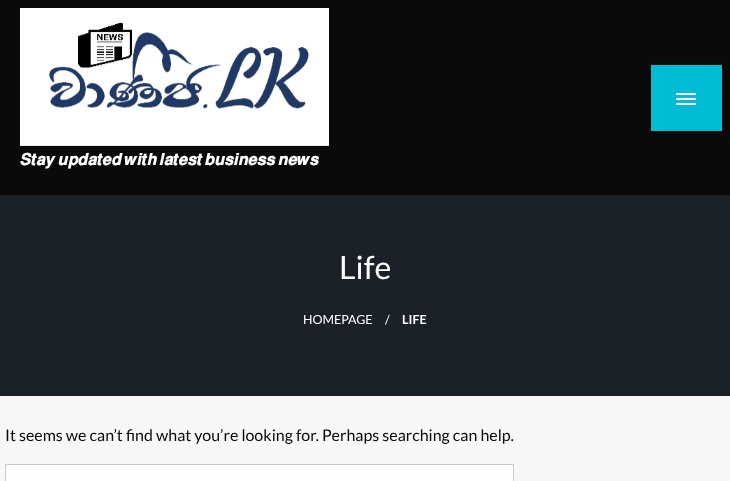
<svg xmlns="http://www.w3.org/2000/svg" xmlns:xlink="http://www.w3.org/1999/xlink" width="730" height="481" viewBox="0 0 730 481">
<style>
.cls-1{font:bold 16px FreeSans;fill:#fefefe}
.cls-2{font:32px Lato;fill:#fefefe}
.cls-3{font:12.5px Lato;fill:#fefefe}
.cls-4{font:bold 12.5px Lato;fill:#fefefe}
.cls-5{font:16px Lato;fill:#0a0a0a}
</style>
<rect width="100%" height="100%" fill="#f7f7f7"/>
<rect fill="#0a0a0a" x="0" y="0" width="730" height="195"/>
<rect fill="#00bcd4" x="651" y="65" width="71" height="66"/>
<rect fill="#ffffff" x="676" y="93" width="20" height="2"/>
<rect fill="#ffffff" x="676" y="98" width="20" height="2"/>
<rect fill="#ffffff" x="676" y="103" width="20" height="2"/>
<image xlink:href="image0.png" x="20" y="8" width="309" height="138"/>
<rect fill="#1c2127" x="0" y="195" width="730" height="201"/>
<rect fill="#fefefe" stroke="#cacaca" x="5.5" y="464.5" width="508" height="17"/>
<text class="cls-1" x="20" y="165" word-spacing="-1">𝑺𝒕𝒂𝒚 𝒖𝒑𝒅𝒂𝒕𝒆𝒅 𝒘𝒊𝒕𝒉 𝒍𝒂𝒕𝒆𝒔𝒕 𝒃𝒖𝒔𝒊𝒏𝒆𝒔𝒔 𝒏𝒆𝒘𝒔</text>
<text class="cls-2" x="339" y="279">Life</text>
<text class="cls-3" x="303" y="324">HOMEPAGE</text>
<text class="cls-3" x="385" y="324">/</text>
<text class="cls-4" x="402" y="324">LIFE</text>
<text class="cls-5" x="5" y="441">It seems we can’t find what you’re looking for. Perhaps searching can help.</text>
</svg>
